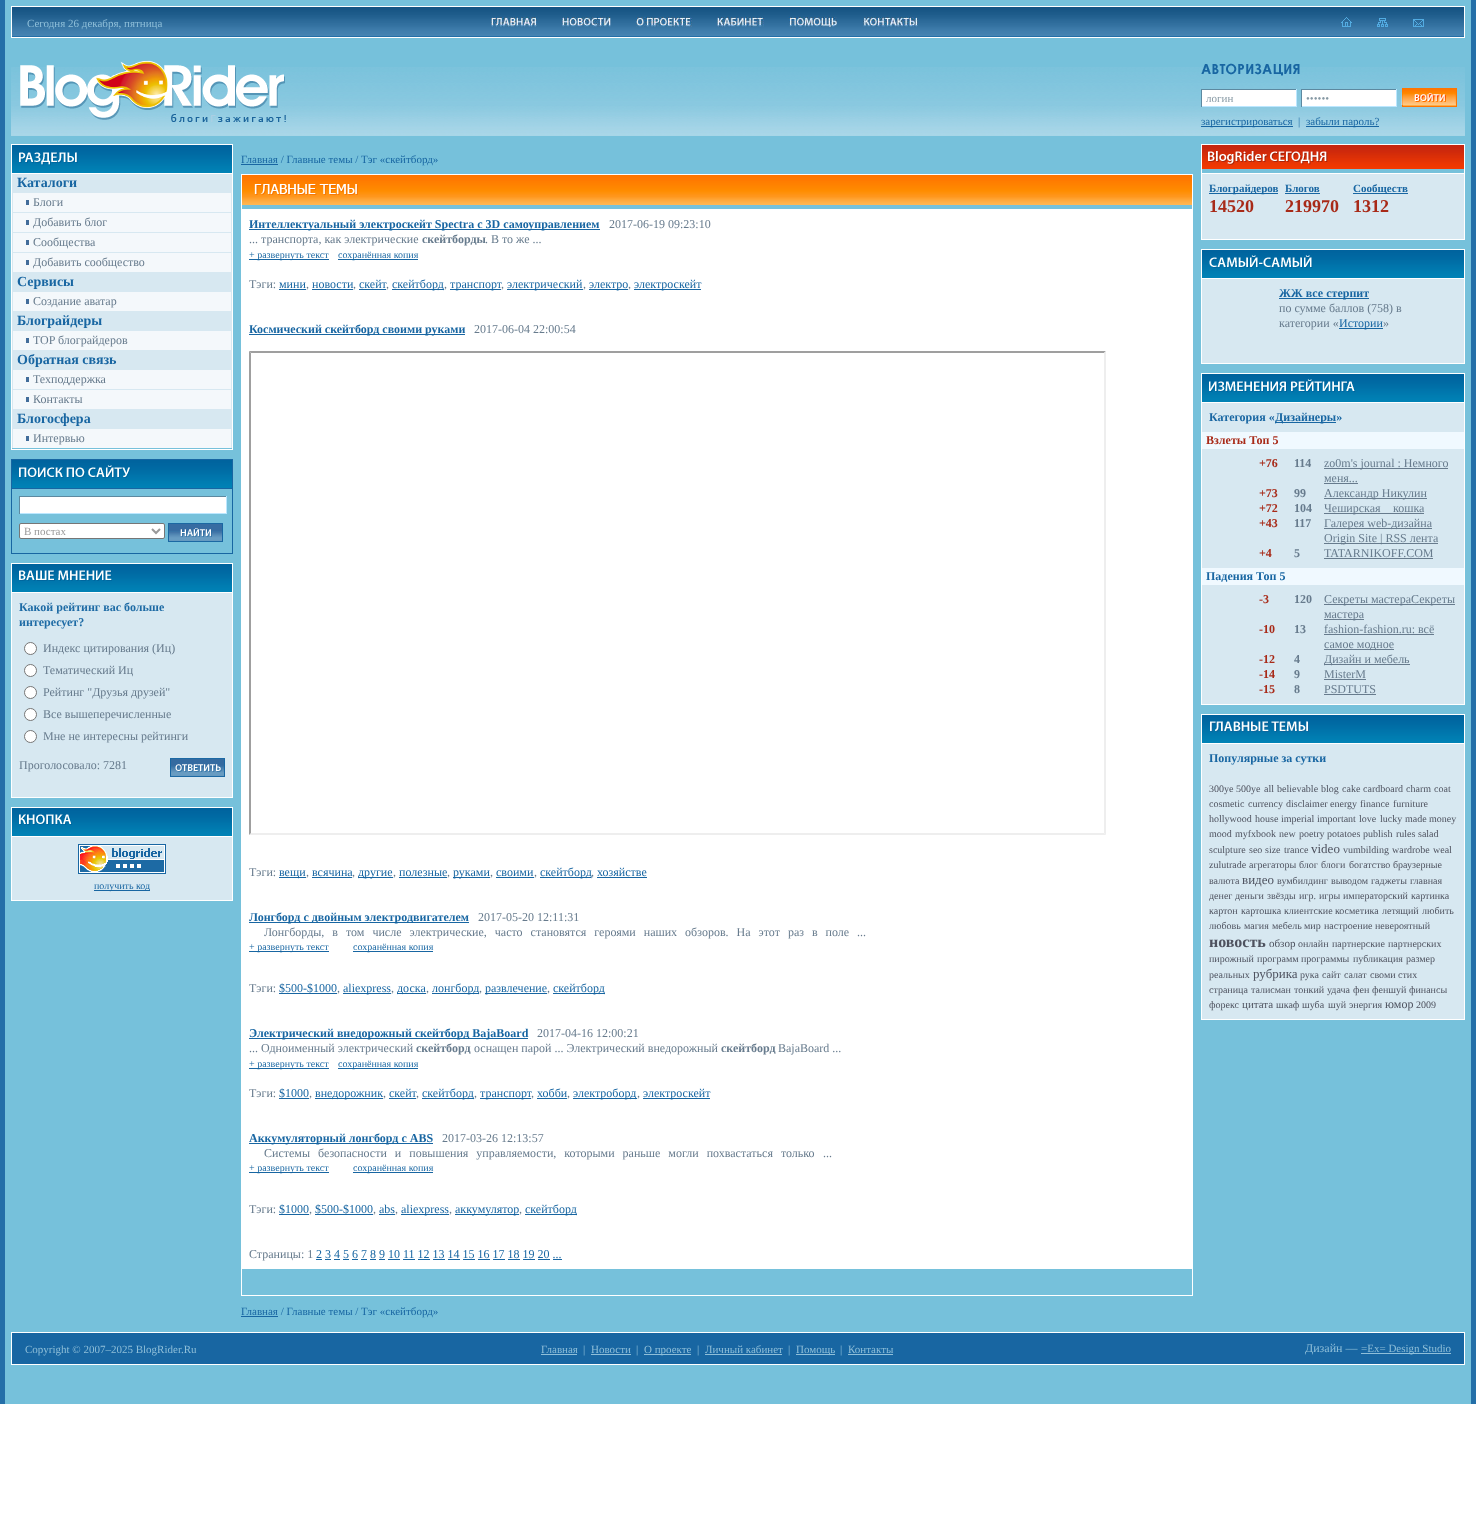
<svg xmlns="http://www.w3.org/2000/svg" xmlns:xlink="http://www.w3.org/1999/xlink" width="1476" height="1525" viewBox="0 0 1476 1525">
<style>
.cls-1{font:11px Liberation Serif;fill:#8fbfd9}
.cls-2{font:11px Liberation Serif;fill:#8799a4}
.cls-3{font:11px Liberation Serif;fill:#1866a2}
.cls-4{font:11px Liberation Serif;fill:#246fa8}
.cls-5{font:bold 14px Liberation Serif;fill:#1866a2}
.cls-6{font:12px Liberation Serif;fill:#677b8d}
.cls-7{font:11px Liberation Serif;fill:#999999}
.cls-8{font:bold 12px Liberation Serif;fill:#1e6ba5}
.cls-9{font:10px Liberation Serif;fill:#1866a2}
.cls-10{font:bold 12px Liberation Serif;fill:#1866a2}
.cls-11{font:bold 12px Liberation Serif;fill:#677b8d}
.cls-12{font:12px Liberation Serif;fill:#1866a2}
.cls-13{font:bold 11px Liberation Serif;fill:#1866a2}
.cls-14{font:bold 18px Liberation Serif;fill:#a82a18}
.cls-15{font:bold 12px Liberation Serif;fill:#a82a18}
.cls-16{font:10px Liberation Serif;fill:#4e525f}
.cls-17{font:13px Liberation Serif;fill:#4e525f}
.cls-18{font:bold 16px Liberation Serif;fill:#4e525f}
.cls-19{font:11px Liberation Serif;fill:#4e525f}
.cls-20{font:12px Liberation Serif;fill:#4e525f}
.cls-21{font:12px Liberation Serif;fill:#8fbfd9}
</style>
<rect width="100%" height="100%" fill="#ffffff"/>
<rect fill="#246fa8" x="0" y="0" width="1476" height="1404"/>
<rect fill="#76c1db" x="5" y="0" width="1466" height="1404"/>
<rect fill="#246fa8" x="12" y="36" width="1452" height="1"/>
<image xlink:href="image0.png" x="12" y="7" width="1452" height="29"/>
<rect fill="none" stroke="#ffffff" x="11.5" y="6.5" width="1453" height="31"/>
<image xlink:href="image1.png" x="491" y="17" width="46" height="10"/>
<image xlink:href="image2.png" x="562" y="17" width="49" height="10"/>
<image xlink:href="image3.png" x="636" y="17" width="56" height="10"/>
<image xlink:href="image4.png" x="717" y="17" width="47" height="10"/>
<image xlink:href="image5.png" x="789" y="17" width="48" height="10"/>
<image xlink:href="image6.png" x="863" y="17" width="55" height="10"/>
<image xlink:href="image7.png" x="1341" y="17" width="11" height="10"/>
<image xlink:href="image8.png" x="1377" y="18" width="11" height="9"/>
<image xlink:href="image9.png" x="1413" y="19" width="11" height="8"/>
<image xlink:href="image10.png" x="11" y="67" width="1454" height="69"/>
<image xlink:href="image11.png" x="20" y="60" width="266" height="62"/>
<image xlink:href="image12.png" x="1201" y="63" width="99" height="13"/>
<rect fill="#ffffff" x="1202" y="90" width="94" height="16"/>
<rect fill="#5d89a0" x="1201" y="89" width="96" height="1"/>
<rect fill="#bce7ff" x="1296" y="89" width="1" height="18"/>
<rect fill="#bce7ff" x="1201" y="106" width="96" height="1"/>
<rect fill="#5d89a0" x="1201" y="89" width="1" height="18"/>
<rect fill="#ffffff" x="1302" y="90" width="94" height="16"/>
<rect fill="#5d89a0" x="1301" y="89" width="96" height="1"/>
<rect fill="#bce7ff" x="1396" y="89" width="1" height="18"/>
<rect fill="#bce7ff" x="1301" y="106" width="96" height="1"/>
<rect fill="#5d89a0" x="1301" y="89" width="1" height="18"/>
<image xlink:href="image13.png" x="1401" y="88" width="56" height="19"/>
<rect fill="#1866a2" x="1201" y="126" width="92" height="1"/>
<rect fill="#1866a2" x="1306" y="126" width="73" height="1"/>
<rect fill="none" stroke="#ffffff" x="11.5" y="144.5" width="221" height="305"/>
<image xlink:href="image14.png" x="12" y="145" width="220" height="28"/>
<rect fill="#ffffff" x="12" y="173" width="220" height="1"/>
<image xlink:href="image15.png" x="19" y="152" width="59" height="14"/>
<rect fill="#d7e8f1" x="12" y="174" width="220" height="274"/>
<rect fill="#f4f8fb" x="13" y="193" width="218" height="19"/>
<rect fill="#416c9a" x="26" y="200" width="3" height="5"/>
<rect fill="#f4f8fb" x="13" y="213" width="218" height="19"/>
<rect fill="#416c9a" x="26" y="220" width="3" height="5"/>
<rect fill="#f4f8fb" x="13" y="233" width="218" height="19"/>
<rect fill="#416c9a" x="26" y="240" width="3" height="5"/>
<rect fill="#f4f8fb" x="13" y="253" width="218" height="19"/>
<rect fill="#416c9a" x="26" y="260" width="3" height="5"/>
<rect fill="#f4f8fb" x="13" y="292" width="218" height="19"/>
<rect fill="#416c9a" x="26" y="299" width="3" height="5"/>
<rect fill="#f4f8fb" x="13" y="331" width="218" height="19"/>
<rect fill="#416c9a" x="26" y="338" width="3" height="5"/>
<rect fill="#f4f8fb" x="13" y="370" width="218" height="19"/>
<rect fill="#416c9a" x="26" y="377" width="3" height="5"/>
<rect fill="#f4f8fb" x="13" y="390" width="218" height="19"/>
<rect fill="#416c9a" x="26" y="397" width="3" height="5"/>
<rect fill="#f4f8fb" x="13" y="429" width="218" height="19"/>
<rect fill="#416c9a" x="26" y="436" width="3" height="5"/>
<rect fill="none" stroke="#1866a2" x="11.5" y="459.5" width="221" height="94"/>
<image xlink:href="image14.png" x="12" y="460" width="220" height="28"/>
<rect fill="#1866a2" x="12" y="488" width="220" height="1"/>
<image xlink:href="image16.png" x="19" y="465" width="112" height="13"/>
<rect fill="#ffffff" x="20" y="497" width="206" height="16"/>
<rect fill="#5d89a0" x="19" y="496" width="208" height="1"/>
<rect fill="#bce7ff" x="226" y="496" width="1" height="18"/>
<rect fill="#bce7ff" x="19" y="513" width="208" height="1"/>
<rect fill="#5d89a0" x="19" y="496" width="1" height="18"/>
<rect fill="#ffffff" stroke="#767676" x="19.5" y="523.5" width="145" height="15" rx="1.5"/>
<path fill="none" stroke="#999999" stroke-width="2" d="M152 529L156 533L160 529"/>
<image xlink:href="image17.png" x="168" y="523" width="55" height="19"/>
<rect fill="none" stroke="#ffffff" x="11.5" y="563.5" width="221" height="234"/>
<image xlink:href="image14.png" x="12" y="564" width="220" height="28"/>
<rect fill="#ffffff" x="12" y="592" width="220" height="1"/>
<image xlink:href="image18.png" x="19" y="570" width="93" height="11"/>
<rect fill="#d7e8f1" x="12" y="593" width="220" height="204"/>
<circle fill="#ffffff" stroke="#767676" cx="30.5" cy="648.5" r="6"/>
<circle fill="#ffffff" stroke="#767676" cx="30.5" cy="670.5" r="6"/>
<circle fill="#ffffff" stroke="#767676" cx="30.5" cy="692.5" r="6"/>
<circle fill="#ffffff" stroke="#767676" cx="30.5" cy="714.5" r="6"/>
<circle fill="#ffffff" stroke="#767676" cx="30.5" cy="736.5" r="6"/>
<image xlink:href="image19.png" x="170" y="758" width="55" height="19"/>
<rect fill="none" stroke="#ffffff" x="11.5" y="807.5" width="221" height="93"/>
<image xlink:href="image14.png" x="12" y="808" width="220" height="28"/>
<rect fill="#ffffff" x="12" y="836" width="220" height="1"/>
<image xlink:href="image20.png" x="19" y="814" width="53" height="11"/>
<rect fill="#d7e8f1" x="12" y="837" width="220" height="63"/>
<image xlink:href="image21.png" x="78" y="844" width="88" height="30"/>
<rect fill="#1866a2" x="94" y="890" width="56" height="1"/>
<rect fill="#1866a2" x="241" y="164" width="37" height="1"/>
<rect fill="none" stroke="#ffffff" x="241.5" y="174.5" width="951" height="1121"/>
<image xlink:href="image22.png" x="242" y="175" width="950" height="30"/>
<rect fill="#ffffff" x="242" y="209" width="950" height="1060"/>
<image xlink:href="image23.png" x="254" y="184" width="104" height="11"/>
<rect fill="#1866a2" x="249" y="229" width="351" height="1"/>
<rect fill="#1866a2" x="249" y="259" width="80" height="1"/>
<rect fill="#1866a2" x="338" y="259" width="80" height="1"/>
<rect fill="#1866a2" x="279" y="289" width="27" height="1"/>
<rect fill="#1866a2" x="312" y="289" width="41" height="1"/>
<rect fill="#1866a2" x="359" y="289" width="27" height="1"/>
<rect fill="#1866a2" x="392" y="289" width="52" height="1"/>
<rect fill="#1866a2" x="450" y="289" width="51" height="1"/>
<rect fill="#1866a2" x="507" y="289" width="76" height="1"/>
<rect fill="#1866a2" x="589" y="289" width="39" height="1"/>
<rect fill="#1866a2" x="634" y="289" width="67" height="1"/>
<rect fill="#1866a2" x="249" y="334" width="216" height="1"/>
<path fill="#9f9f9f" d="M249 351H1106L1104 353H251Z"/>
<path fill="#eeeeee" d="M1106 351V835L1104 833V353Z"/>
<path fill="#eeeeee" d="M1106 835H249L251 833H1104Z"/>
<path fill="#9f9f9f" d="M249 835V351L251 353V833Z"/>
<rect fill="#1866a2" x="279" y="877" width="27" height="1"/>
<rect fill="#1866a2" x="312" y="877" width="40" height="1"/>
<rect fill="#1866a2" x="358" y="877" width="35" height="1"/>
<rect fill="#1866a2" x="399" y="877" width="48" height="1"/>
<rect fill="#1866a2" x="453" y="877" width="37" height="1"/>
<rect fill="#1866a2" x="496" y="877" width="38" height="1"/>
<rect fill="#1866a2" x="540" y="877" width="51" height="1"/>
<rect fill="#1866a2" x="597" y="877" width="50" height="1"/>
<rect fill="#1866a2" x="249" y="922" width="220" height="1"/>
<rect fill="#1866a2" x="249" y="951" width="80" height="1"/>
<rect fill="#1866a2" x="353" y="951" width="80" height="1"/>
<rect fill="#1866a2" x="279" y="993" width="58" height="1"/>
<rect fill="#1866a2" x="343" y="993" width="48" height="1"/>
<rect fill="#1866a2" x="397" y="993" width="29" height="1"/>
<rect fill="#1866a2" x="432" y="993" width="47" height="1"/>
<rect fill="#1866a2" x="485" y="993" width="62" height="1"/>
<rect fill="#1866a2" x="553" y="993" width="52" height="1"/>
<rect fill="#1866a2" x="249" y="1038" width="279" height="1"/>
<rect fill="#1866a2" x="249" y="1068" width="80" height="1"/>
<rect fill="#1866a2" x="338" y="1068" width="80" height="1"/>
<rect fill="#1866a2" x="279" y="1098" width="30" height="1"/>
<rect fill="#1866a2" x="315" y="1098" width="68" height="1"/>
<rect fill="#1866a2" x="389" y="1098" width="27" height="1"/>
<rect fill="#1866a2" x="422" y="1098" width="52" height="1"/>
<rect fill="#1866a2" x="480" y="1098" width="51" height="1"/>
<rect fill="#1866a2" x="537" y="1098" width="30" height="1"/>
<rect fill="#1866a2" x="573" y="1098" width="64" height="1"/>
<rect fill="#1866a2" x="643" y="1098" width="67" height="1"/>
<rect fill="#1866a2" x="249" y="1143" width="184" height="1"/>
<rect fill="#1866a2" x="249" y="1172" width="80" height="1"/>
<rect fill="#1866a2" x="353" y="1172" width="80" height="1"/>
<rect fill="#1866a2" x="279" y="1214" width="30" height="1"/>
<rect fill="#1866a2" x="315" y="1214" width="58" height="1"/>
<rect fill="#1866a2" x="379" y="1214" width="16" height="1"/>
<rect fill="#1866a2" x="401" y="1214" width="48" height="1"/>
<rect fill="#1866a2" x="455" y="1214" width="64" height="1"/>
<rect fill="#1866a2" x="525" y="1214" width="52" height="1"/>
<rect fill="#1866a2" x="316" y="1259" width="6" height="1"/>
<rect fill="#1866a2" x="325" y="1259" width="6" height="1"/>
<rect fill="#1866a2" x="334" y="1259" width="6" height="1"/>
<rect fill="#1866a2" x="343" y="1259" width="6" height="1"/>
<rect fill="#1866a2" x="352" y="1259" width="6" height="1"/>
<rect fill="#1866a2" x="361" y="1259" width="6" height="1"/>
<rect fill="#1866a2" x="370" y="1259" width="6" height="1"/>
<rect fill="#1866a2" x="379" y="1259" width="6" height="1"/>
<rect fill="#1866a2" x="388" y="1259" width="12" height="1"/>
<rect fill="#1866a2" x="403" y="1259" width="12" height="1"/>
<rect fill="#1866a2" x="418" y="1259" width="12" height="1"/>
<rect fill="#1866a2" x="433" y="1259" width="12" height="1"/>
<rect fill="#1866a2" x="448" y="1259" width="12" height="1"/>
<rect fill="#1866a2" x="463" y="1259" width="12" height="1"/>
<rect fill="#1866a2" x="478" y="1259" width="12" height="1"/>
<rect fill="#1866a2" x="493" y="1259" width="12" height="1"/>
<rect fill="#1866a2" x="508" y="1259" width="12" height="1"/>
<rect fill="#1866a2" x="523" y="1259" width="12" height="1"/>
<rect fill="#1866a2" x="538" y="1259" width="12" height="1"/>
<rect fill="#1866a2" x="553" y="1259" width="9" height="1"/>
<rect fill="#1866a2" x="241" y="1316" width="37" height="1"/>
<rect fill="none" stroke="#ffffff" x="1201.5" y="144.5" width="263" height="95"/>
<image xlink:href="image24.png" x="1202" y="145" width="262" height="24"/>
<rect fill="#ffffff" x="1202" y="173" width="262" height="1"/>
<image xlink:href="image25.png" x="1208" y="151" width="120" height="14"/>
<rect fill="#d7e8f1" x="1202" y="174" width="262" height="65"/>
<rect fill="#1866a2" x="1209" y="193" width="69" height="1"/>
<rect fill="#1866a2" x="1285" y="193" width="35" height="1"/>
<rect fill="#1866a2" x="1353" y="193" width="55" height="1"/>
<rect fill="none" stroke="#ffffff" x="1201.5" y="249.5" width="263" height="114"/>
<image xlink:href="image26.png" x="1202" y="250" width="262" height="28"/>
<rect fill="#ffffff" x="1202" y="278" width="262" height="1"/>
<image xlink:href="image27.png" x="1209" y="255" width="104" height="13"/>
<rect fill="#d7e8f1" x="1202" y="279" width="262" height="84"/>
<rect fill="#1866a2" x="1279" y="298" width="90" height="1"/>
<rect fill="#1866a2" x="1339" y="328" width="44" height="1"/>
<rect fill="none" stroke="#ffffff" x="1201.5" y="373.5" width="263" height="331"/>
<image xlink:href="image26.png" x="1202" y="374" width="262" height="28"/>
<rect fill="#ffffff" x="1202" y="402" width="262" height="1"/>
<image xlink:href="image28.png" x="1209" y="379" width="147" height="13"/>
<rect fill="#d7e8f1" x="1202" y="403" width="262" height="29"/>
<rect fill="#1866a2" x="1275" y="422" width="61" height="1"/>
<rect fill="#f0f9ff" x="1202" y="432" width="262" height="17"/>
<rect fill="#d7e8f1" x="1202" y="449" width="262" height="119"/>
<rect fill="#677b8d" x="1324" y="468" width="124" height="1"/>
<rect fill="#677b8d" x="1324" y="483" width="34" height="1"/>
<rect fill="#677b8d" x="1324" y="498" width="103" height="1"/>
<rect fill="#677b8d" x="1324" y="513" width="100" height="1"/>
<rect fill="#677b8d" x="1324" y="528" width="108" height="1"/>
<rect fill="#677b8d" x="1324" y="543" width="114" height="1"/>
<rect fill="#677b8d" x="1324" y="558" width="109" height="1"/>
<rect fill="#f0f9ff" x="1202" y="568" width="262" height="17"/>
<rect fill="#d7e8f1" x="1202" y="585" width="262" height="119"/>
<rect fill="#677b8d" x="1324" y="604" width="131" height="1"/>
<rect fill="#677b8d" x="1324" y="619" width="40" height="1"/>
<rect fill="#677b8d" x="1324" y="634" width="110" height="1"/>
<rect fill="#677b8d" x="1324" y="649" width="70" height="1"/>
<rect fill="#677b8d" x="1324" y="664" width="86" height="1"/>
<rect fill="#677b8d" x="1324" y="679" width="42" height="1"/>
<rect fill="#677b8d" x="1324" y="694" width="52" height="1"/>
<rect fill="none" stroke="#ffffff" x="1201.5" y="714.5" width="263" height="305"/>
<image xlink:href="image26.png" x="1202" y="715" width="262" height="28"/>
<rect fill="#ffffff" x="1202" y="743" width="262" height="1"/>
<image xlink:href="image29.png" x="1210" y="721" width="99" height="11"/>
<rect fill="#d7e8f1" x="1202" y="744" width="262" height="275"/>
<rect fill="#1866a2" stroke="#ffffff" x="11.5" y="1332.5" width="1453" height="32"/>
<rect fill="#8fbfd9" x="541" y="1354" width="36" height="1"/>
<rect fill="#8fbfd9" x="591" y="1354" width="40" height="1"/>
<rect fill="#8fbfd9" x="644" y="1354" width="47" height="1"/>
<rect fill="#8fbfd9" x="705" y="1354" width="77" height="1"/>
<rect fill="#8fbfd9" x="796" y="1354" width="39" height="1"/>
<rect fill="#8fbfd9" x="848" y="1354" width="45" height="1"/>
<rect fill="#8fbfd9" x="1361" y="1353" width="90" height="1"/>
<text class="cls-1" x="27" y="27">Сегодня 26 декабря, пятница</text>
<text class="cls-2" x="1206" y="102">логин</text>
<text class="cls-2" x="1306" y="102">••••••</text>
<text class="cls-3" x="1201" y="125">зарегистрироваться</text>
<text class="cls-4" x="1298" y="125">|</text>
<text class="cls-3" x="1306" y="125">забыли пароль?</text>
<text class="cls-5" x="17" y="187">Каталоги</text>
<text class="cls-6"><tspan x="33" y="206">Блоги</tspan><tspan x="33" y="226">Добавить блог</tspan><tspan x="33" y="246">Сообщества</tspan><tspan x="33" y="266">Добавить сообщество</tspan></text>
<text class="cls-5" x="17" y="286">Сервисы</text>
<text class="cls-6" x="33" y="305">Создание аватар</text>
<text class="cls-5" x="17" y="325">Блограйдеры</text>
<text class="cls-6" x="33" y="344">TOP блограйдеров</text>
<text class="cls-5" x="17" y="364">Обратная связь</text>
<text class="cls-6"><tspan x="33" y="383">Техподдержка</tspan><tspan x="33" y="403">Контакты</tspan></text>
<text class="cls-5" x="17" y="423">Блогосфера</text>
<text class="cls-6" x="33" y="442">Интервью</text>
<text class="cls-7" x="24" y="535">В постах</text>
<text class="cls-8"><tspan x="19" y="611">Какой рейтинг вас больше</tspan><tspan x="19" y="626">интересует?</tspan></text>
<text class="cls-6"><tspan x="43" y="652">Индекс цитирования (Иц)</tspan><tspan x="43" y="674">Тематический Иц</tspan><tspan x="43" y="696">Рейтинг "Друзья друзей"</tspan><tspan x="43" y="718">Все вышеперечисленные</tspan><tspan x="43" y="740">Мне не интересны рейтинги</tspan></text>
<text class="cls-6" x="19" y="769">Проголосовало: 7281</text>
<text class="cls-9" x="94" y="889">получить код</text>
<text class="cls-3" x="241" y="163">Главная / Главные темы / Тэг «скейтборд»</text>
<text class="cls-10" x="249" y="228">Интеллектуальный электроскейт Spectra с 3D самоуправлением</text>
<text class="cls-6" x="609" y="228">2017-06-19 09:23:10</text>
<text class="cls-6" x="249" y="243">... транспорта, как электрические</text>
<text class="cls-11" x="422" y="243">скейтборды</text>
<text class="cls-6" x="485" y="243">. В то же ...</text>
<text class="cls-9" x="249" y="258">+ развернуть текст</text>
<text class="cls-9" x="338" y="258">сохранённая копия</text>
<text class="cls-6" x="249" y="288">Тэги:</text>
<text class="cls-12" x="279" y="288">мини</text>
<text class="cls-6" x="306" y="288">,</text>
<text class="cls-12" x="312" y="288">новости</text>
<text class="cls-6" x="353" y="288">,</text>
<text class="cls-12" x="359" y="288">скейт</text>
<text class="cls-6" x="386" y="288">,</text>
<text class="cls-12" x="392" y="288">скейтборд</text>
<text class="cls-6" x="444" y="288">,</text>
<text class="cls-12" x="450" y="288">транспорт</text>
<text class="cls-6" x="501" y="288">,</text>
<text class="cls-12" x="507" y="288">электрический</text>
<text class="cls-6" x="583" y="288">,</text>
<text class="cls-12" x="589" y="288">электро</text>
<text class="cls-6" x="628" y="288">,</text>
<text class="cls-12" x="634" y="288">электроскейт</text>
<text class="cls-10" x="249" y="333">Космический скейтборд своими руками</text>
<text class="cls-6" x="474" y="333">2017-06-04 22:00:54</text>
<text class="cls-6" x="249" y="876">Тэги:</text>
<text class="cls-12" x="279" y="876">вещи</text>
<text class="cls-6" x="306" y="876">,</text>
<text class="cls-12" x="312" y="876">всячина</text>
<text class="cls-6" x="352" y="876">,</text>
<text class="cls-12" x="358" y="876">другие</text>
<text class="cls-6" x="393" y="876">,</text>
<text class="cls-12" x="399" y="876">полезные</text>
<text class="cls-6" x="447" y="876">,</text>
<text class="cls-12" x="453" y="876">руками</text>
<text class="cls-6" x="490" y="876">,</text>
<text class="cls-12" x="496" y="876">своими</text>
<text class="cls-6" x="534" y="876">,</text>
<text class="cls-12" x="540" y="876">скейтборд</text>
<text class="cls-6" x="591" y="876">,</text>
<text class="cls-12" x="597" y="876">хозяйстве</text>
<text class="cls-10" x="249" y="921">Лонгборд с двойным электродвигателем</text>
<text class="cls-6" x="478" y="921">2017-05-20 12:11:31</text>
<text class="cls-6" x="264" y="936" word-spacing="5">Лонгборды, в том числе электрические, часто становятся героями наших обзоров. На этот раз в поле</text>
<text class="cls-6" x="857" y="936">...</text>
<text class="cls-9" x="249" y="950">+ развернуть текст</text>
<text class="cls-9" x="353" y="950">сохранённая копия</text>
<text class="cls-6" x="249" y="992">Тэги:</text>
<text class="cls-12" x="279" y="992">$500-$1000</text>
<text class="cls-6" x="337" y="992">,</text>
<text class="cls-12" x="343" y="992">aliexpress</text>
<text class="cls-6" x="391" y="992">,</text>
<text class="cls-12" x="397" y="992">доска</text>
<text class="cls-6" x="426" y="992">,</text>
<text class="cls-12" x="432" y="992">лонгборд</text>
<text class="cls-6" x="479" y="992">,</text>
<text class="cls-12" x="485" y="992">развлечение</text>
<text class="cls-6" x="547" y="992">,</text>
<text class="cls-12" x="553" y="992">скейтборд</text>
<text class="cls-10" x="249" y="1037">Электрический внедорожный скейтборд BajaBoard</text>
<text class="cls-6" x="537" y="1037">2017-04-16 12:00:21</text>
<text class="cls-6" x="249" y="1052">... Одноименный электрический</text>
<text class="cls-11" x="416" y="1052">скейтборд</text>
<text class="cls-6" x="474" y="1052">оснащен парой ... Электрический внедорожный</text>
<text class="cls-11" x="721" y="1052">скейтборд</text>
<text class="cls-6" x="778" y="1052">BajaBoard ...</text>
<text class="cls-9" x="249" y="1067">+ развернуть текст</text>
<text class="cls-9" x="338" y="1067">сохранённая копия</text>
<text class="cls-6" x="249" y="1097">Тэги:</text>
<text class="cls-12" x="279" y="1097">$1000</text>
<text class="cls-6" x="309" y="1097">,</text>
<text class="cls-12" x="315" y="1097">внедорожник</text>
<text class="cls-6" x="383" y="1097">,</text>
<text class="cls-12" x="389" y="1097">скейт</text>
<text class="cls-6" x="416" y="1097">,</text>
<text class="cls-12" x="422" y="1097">скейтборд</text>
<text class="cls-6" x="474" y="1097">,</text>
<text class="cls-12" x="480" y="1097">транспорт</text>
<text class="cls-6" x="531" y="1097">,</text>
<text class="cls-12" x="537" y="1097">хобби</text>
<text class="cls-6" x="567" y="1097">,</text>
<text class="cls-12" x="573" y="1097">электроборд</text>
<text class="cls-6" x="637" y="1097">,</text>
<text class="cls-12" x="643" y="1097">электроскейт</text>
<text class="cls-10" x="249" y="1142">Аккумуляторный лонгборд с ABS</text>
<text class="cls-6" x="442" y="1142">2017-03-26 12:13:57</text>
<text class="cls-6" x="264" y="1157" word-spacing="5">Системы безопасности и повышения управляемости, которыми раньше могли похвастаться только</text>
<text class="cls-6" x="823" y="1157">...</text>
<text class="cls-9" x="249" y="1171">+ развернуть текст</text>
<text class="cls-9" x="353" y="1171">сохранённая копия</text>
<text class="cls-6" x="249" y="1213">Тэги:</text>
<text class="cls-12" x="279" y="1213">$1000</text>
<text class="cls-6" x="309" y="1213">,</text>
<text class="cls-12" x="315" y="1213">$500-$1000</text>
<text class="cls-6" x="373" y="1213">,</text>
<text class="cls-12" x="379" y="1213">abs</text>
<text class="cls-6" x="395" y="1213">,</text>
<text class="cls-12" x="401" y="1213">aliexpress</text>
<text class="cls-6" x="449" y="1213">,</text>
<text class="cls-12" x="455" y="1213">аккумулятор</text>
<text class="cls-6" x="519" y="1213">,</text>
<text class="cls-12" x="525" y="1213">скейтборд</text>
<text class="cls-6" x="249" y="1258">Страницы: 1</text>
<text class="cls-12" x="316" y="1258">2 3 4 5 6 7 8 9 10 11 12 13 14 15 16 17 18 19 20 ...</text>
<text class="cls-3" x="241" y="1315">Главная / Главные темы / Тэг «скейтборд»</text>
<text class="cls-13" x="1209" y="192">Блограйдеров</text>
<text class="cls-14" x="1209" y="212">14520</text>
<text class="cls-13" x="1285" y="192">Блогов</text>
<text class="cls-14" x="1285" y="212">219970</text>
<text class="cls-13" x="1353" y="192">Сообществ</text>
<text class="cls-14" x="1353" y="212">1312</text>
<text class="cls-10" x="1279" y="297">ЖЖ все стерпит</text>
<text class="cls-6"><tspan x="1279" y="312">по сумме баллов (758) в</tspan><tspan x="1279" y="327">категории «</tspan></text>
<text class="cls-12" x="1339" y="327">Истории</text>
<text class="cls-6" x="1383" y="327">»</text>
<text class="cls-10" x="1209" y="421">Категория «</text>
<text class="cls-10" x="1275" y="421">Дизайнеры»</text>
<text class="cls-15" x="1206" y="444">Взлеты Топ 5</text>
<text class="cls-15" x="1259" y="467">+76</text>
<text class="cls-11" x="1294" y="467">114</text>
<text class="cls-6"><tspan x="1324" y="467">zo0m's journal : Немного</tspan><tspan x="1324" y="482">меня...</tspan></text>
<text class="cls-15" x="1259" y="497">+73</text>
<text class="cls-11" x="1294" y="497">99</text>
<text class="cls-6" x="1324" y="497">Александр Никулин</text>
<text class="cls-15" x="1259" y="512">+72</text>
<text class="cls-11" x="1294" y="512">104</text>
<text class="cls-6" x="1324" y="512">Чеширская</text>
<text class="cls-6" x="1393" y="512">кошка</text>
<text class="cls-15" x="1259" y="527">+43</text>
<text class="cls-11" x="1294" y="527">117</text>
<text class="cls-6"><tspan x="1324" y="527">Галерея web-дизайна</tspan><tspan x="1324" y="542">Origin Site | RSS лента</tspan></text>
<text class="cls-15" x="1259" y="557">+4</text>
<text class="cls-11" x="1294" y="557">5</text>
<text class="cls-6" x="1324" y="557">TATARNIKOFF.COM</text>
<text class="cls-10" x="1206" y="580">Падения Топ 5</text>
<text class="cls-15" x="1259" y="603">-3</text>
<text class="cls-11" x="1294" y="603">120</text>
<text class="cls-6"><tspan x="1324" y="603">Секреты мастераСекреты</tspan><tspan x="1324" y="618">мастера</tspan></text>
<text class="cls-15" x="1259" y="633">-10</text>
<text class="cls-11" x="1294" y="633">13</text>
<text class="cls-6"><tspan x="1324" y="633">fashion-fashion.ru: всё</tspan><tspan x="1324" y="648">самое модное</tspan></text>
<text class="cls-15" x="1259" y="663">-12</text>
<text class="cls-11" x="1294" y="663">4</text>
<text class="cls-6" x="1324" y="663">Дизайн и мебель</text>
<text class="cls-15" x="1259" y="678">-14</text>
<text class="cls-11" x="1294" y="678">9</text>
<text class="cls-6" x="1324" y="678">MisterM</text>
<text class="cls-15" x="1259" y="693">-15</text>
<text class="cls-11" x="1294" y="693">8</text>
<text class="cls-6" x="1324" y="693">PSDTUTS</text>
<text class="cls-10" x="1209" y="762">Популярные за сутки</text>
<text class="cls-16" x="1209" y="792">300ye</text>
<text class="cls-16" x="1236" y="792">500ye</text>
<text class="cls-16" x="1264" y="792">all</text>
<text class="cls-16" x="1277" y="792">believable</text>
<text class="cls-16" x="1321" y="792">blog</text>
<text class="cls-16" x="1342" y="792">cake</text>
<text class="cls-16" x="1363" y="792">cardboard</text>
<text class="cls-16" x="1406" y="792">charm</text>
<text class="cls-16" x="1434" y="792">coat</text>
<text class="cls-16" x="1209" y="807">cosmetic</text>
<text class="cls-16" x="1248" y="807">currency</text>
<text class="cls-16" x="1286" y="807">disclaimer</text>
<text class="cls-16" x="1330" y="807">energy</text>
<text class="cls-16" x="1360" y="807">finance</text>
<text class="cls-16" x="1393" y="807">furniture</text>
<text class="cls-16" x="1209" y="822">hollywood</text>
<text class="cls-16" x="1255" y="822">house</text>
<text class="cls-16" x="1281" y="822">imperial</text>
<text class="cls-16" x="1317" y="822">important</text>
<text class="cls-16" x="1359" y="822">love</text>
<text class="cls-16" x="1380" y="822">lucky</text>
<text class="cls-16" x="1405" y="822">made</text>
<text class="cls-16" x="1429" y="822">money</text>
<text class="cls-16" x="1209" y="837">mood</text>
<text class="cls-16" x="1235" y="837">myfxbook</text>
<text class="cls-16" x="1279" y="837">new</text>
<text class="cls-16" x="1299" y="837">poetry</text>
<text class="cls-16" x="1327" y="837">potatoes</text>
<text class="cls-16" x="1363" y="837">publish</text>
<text class="cls-16" x="1396" y="837">rules</text>
<text class="cls-16" x="1418" y="837">salad</text>
<text class="cls-16" x="1209" y="853">sculpture</text>
<text class="cls-16" x="1249" y="853">seo</text>
<text class="cls-16" x="1265" y="853">size</text>
<text class="cls-16" x="1284" y="853">trance</text>
<text class="cls-17" x="1311" y="853">video</text>
<text class="cls-16" x="1343" y="853">vumbilding</text>
<text class="cls-16" x="1392" y="853">wardrobe</text>
<text class="cls-16" x="1433" y="853">weal</text>
<text class="cls-16" x="1209" y="868">zulutrade</text>
<text class="cls-16" x="1249" y="868">агрегаторы</text>
<text class="cls-16" x="1299" y="868">блог</text>
<text class="cls-16" x="1321" y="868">блоги</text>
<text class="cls-16" x="1349" y="868">богатство</text>
<text class="cls-16" x="1393" y="868">браузерные</text>
<text class="cls-16" x="1209" y="884">валюта</text>
<text class="cls-17" x="1242" y="884">видео</text>
<text class="cls-16" x="1277" y="884">вумбилдинг</text>
<text class="cls-16" x="1331" y="884">выводом</text>
<text class="cls-16" x="1371" y="884">гаджеты</text>
<text class="cls-16" x="1410" y="884">главная</text>
<text class="cls-16" x="1209" y="899">денег</text>
<text class="cls-16" x="1235" y="899">деньги</text>
<text class="cls-16" x="1267" y="899">звёзды</text>
<text class="cls-16" x="1299" y="899">игр.</text>
<text class="cls-16" x="1319" y="899">игры</text>
<text class="cls-16" x="1343" y="899">императорский</text>
<text class="cls-16" x="1411" y="899">картинка</text>
<text class="cls-16" x="1209" y="914">картон</text>
<text class="cls-16" x="1241" y="914">картошка</text>
<text class="cls-16" x="1284" y="914">клиентские</text>
<text class="cls-16" x="1335" y="914">косметика</text>
<text class="cls-16" x="1382" y="914">летящий</text>
<text class="cls-16" x="1422" y="914">любить</text>
<text class="cls-16" x="1209" y="929">любовь</text>
<text class="cls-16" x="1244" y="929">магия</text>
<text class="cls-16" x="1272" y="929">мебель</text>
<text class="cls-16" x="1304" y="929">мир</text>
<text class="cls-16" x="1324" y="929">настроение</text>
<text class="cls-16" x="1375" y="929">невероятный</text>
<text class="cls-18" x="1209" y="947">новость</text>
<text class="cls-19" x="1269" y="947">обзор</text>
<text class="cls-16" x="1298" y="947">онлайн</text>
<text class="cls-16" x="1332" y="947">партнерские</text>
<text class="cls-16" x="1388" y="947">партнерских</text>
<text class="cls-16" x="1209" y="962">пирожный</text>
<text class="cls-16" x="1257" y="962">программ</text>
<text class="cls-16" x="1301" y="962">программы</text>
<text class="cls-16" x="1353" y="962">публикация</text>
<text class="cls-16" x="1406" y="962">размер</text>
<text class="cls-16" x="1209" y="978">реальных</text>
<text class="cls-17" x="1253" y="978">рубрика</text>
<text class="cls-16" x="1300" y="978">рука</text>
<text class="cls-16" x="1322" y="978">сайт</text>
<text class="cls-16" x="1344" y="978">салат</text>
<text class="cls-16" x="1370" y="978">своми</text>
<text class="cls-16" x="1398" y="978">стих</text>
<text class="cls-16" x="1209" y="993">страница</text>
<text class="cls-16" x="1251" y="993">талисман</text>
<text class="cls-16" x="1294" y="993">тонкий</text>
<text class="cls-16" x="1327" y="993">удача</text>
<text class="cls-16" x="1353" y="993">фен</text>
<text class="cls-16" x="1372" y="993">феншуй</text>
<text class="cls-16" x="1409" y="993">финансы</text>
<text class="cls-16" x="1209" y="1008">форекс</text>
<text class="cls-19" x="1242" y="1008">цитата</text>
<text class="cls-16" x="1276" y="1008">шкаф</text>
<text class="cls-16" x="1302" y="1008">шуба</text>
<text class="cls-16" x="1328" y="1008">шуй</text>
<text class="cls-16" x="1349" y="1008">энергия</text>
<text class="cls-20" x="1385" y="1008">юмор</text>
<text class="cls-16" x="1416" y="1008">2009</text>
<text class="cls-1" x="25" y="1353">Copyright © 2007–2025 BlogRider.Ru</text>
<text class="cls-1" x="541" y="1353">Главная</text>
<text class="cls-1" x="583" y="1353">|</text>
<text class="cls-1" x="591" y="1353">Новости</text>
<text class="cls-1" x="636" y="1353">|</text>
<text class="cls-1" x="644" y="1353">О проекте</text>
<text class="cls-1" x="697" y="1353">|</text>
<text class="cls-1" x="705" y="1353">Личный кабинет</text>
<text class="cls-1" x="788" y="1353">|</text>
<text class="cls-1" x="796" y="1353">Помощь</text>
<text class="cls-1" x="840" y="1353">|</text>
<text class="cls-1" x="848" y="1353">Контакты</text>
<text class="cls-21" x="1305" y="1352">Дизайн —</text>
<text class="cls-1" x="1361" y="1352">=Ex= Design Studio</text>
</svg>
